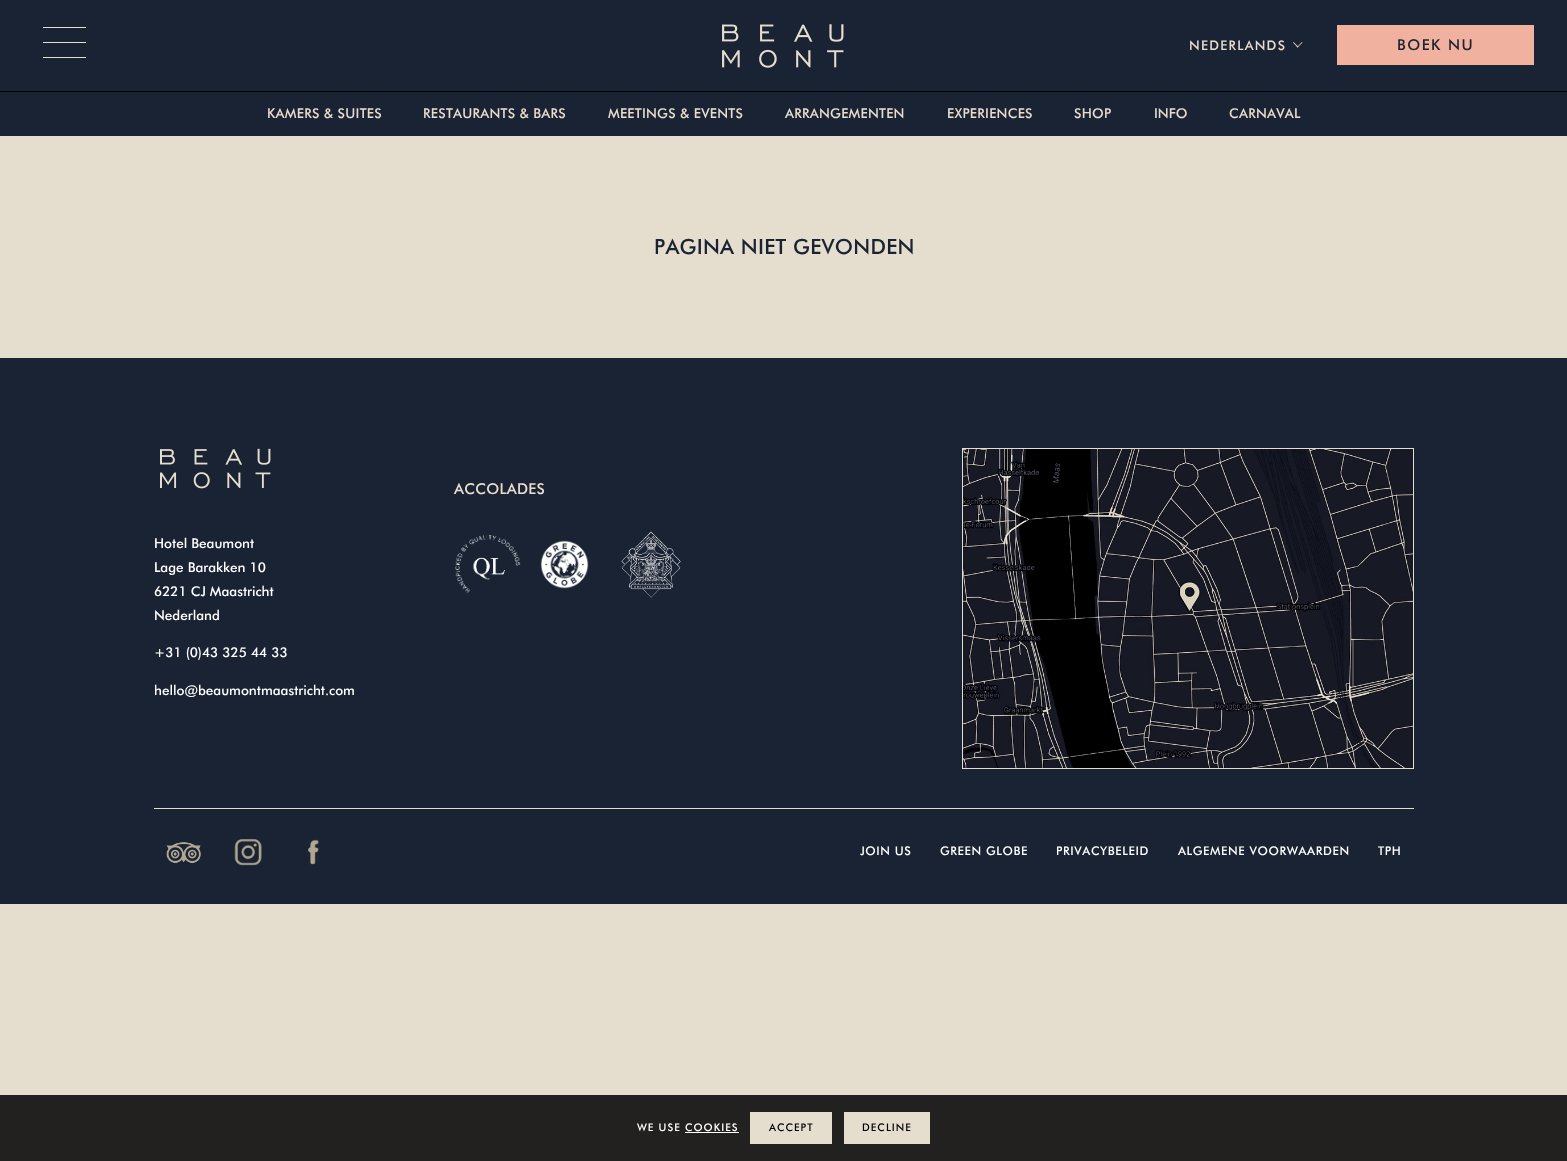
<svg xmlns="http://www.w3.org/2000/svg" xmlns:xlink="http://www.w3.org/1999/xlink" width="1567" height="1161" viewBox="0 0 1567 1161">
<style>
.cls-1{font:13.25px Futura;letter-spacing:1.25px;fill:#e8ddcd}
.cls-2{font:15px Futura;letter-spacing:1.5px;fill:#1a2333}
.cls-3{font:13.5px Futura;letter-spacing:0.25px;fill:#e8ddcd}
.cls-4{font:13.5px Futura;fill:#e8ddcd}
.cls-5{font:21px Futura;letter-spacing:0.25px;fill:#1a2333}
.cls-6{font:15px Futura;letter-spacing:0.25px;fill:#e8ddcd}
.cls-7{font:13.5px Futura;fill:#ffffff}
.cls-8{font:12px Futura;letter-spacing:0.6px;fill:#ffffff}
.cls-9{font:10.5px Futura;letter-spacing:1px;fill:#ffffff}
.cls-10{font:10.5px Futura;letter-spacing:1px;fill:#000000}
</style>
<rect width="100%" height="100%" fill="#e5ddce"/>
<rect fill="#1a2333" x="0" y="0" width="1567" height="91"/>
<rect fill="#e5ddce" x="43" y="57" width="43" height="1"/>
<rect fill="#e5ddce" x="43" y="42" width="43" height="1"/>
<rect fill="#e5ddce" x="43" y="27" width="43" height="1"/>
<image xlink:href="image0.png" x="722" y="24" width="122" height="44"/>
<path fill="#e5ddce" d="M1302 42L1302.5 42.5L1297.5 47.5L1297 47Z"/>
<path fill="#e5ddce" d="M1293.5 42L1298.5 47L1297.5 47.5L1293 42.5Z"/>
<rect fill="#f0b19f" x="1337" y="25" width="197" height="40"/>
<rect fill="#1a2333" x="0" y="92" width="1567" height="44"/>
<rect fill="#000000" x="0" y="91" width="1567" height="1"/>
<rect fill="#1a2333" x="0" y="358" width="1567" height="546"/>
<rect fill="#e5ddce" x="154" y="808" width="1260" height="1"/>
<image xlink:href="image1.png" x="455" y="535" width="66" height="58"/>
<image xlink:href="image2.png" x="540" y="540" width="49" height="49"/>
<image xlink:href="image3.png" x="621" y="531" width="60" height="67"/>
<image xlink:href="image4.png" x="160" y="448" width="111" height="41"/>
<rect fill="none" stroke="#e5ddce" x="962.5" y="448.5" width="451" height="320"/>
<image xlink:href="image5.png" x="963" y="449" width="450" height="319"/>
<image xlink:href="image6.png" x="166" y="842" width="35" height="22"/>
<image xlink:href="image7.png" x="234" y="839" width="28" height="27"/>
<image xlink:href="image8.png" x="308" y="839" width="11" height="26"/>
<rect fill="#22211f" x="0" y="1095" width="1567" height="66"/>
<rect fill="#e5ddce" x="750" y="1112" width="82" height="32"/>
<rect fill="#e5ddce" x="844" y="1112" width="86" height="32"/>
<rect fill="#ffffff" x="685" y="1132" width="54" height="1"/>
<text class="cls-1" x="1189" y="50">NEDERLANDS</text>
<text class="cls-2" x="1397" y="50">BOEK NU</text>
<text class="cls-3" x="267" y="118">KAMERS &amp; SUITES</text>
<text class="cls-3" x="423" y="118">RESTAURANTS &amp; BARS</text>
<text class="cls-3" x="608" y="118">MEETINGS &amp; EVENTS</text>
<text class="cls-3" x="785" y="118">ARRANGEMENTEN</text>
<text class="cls-3" x="947" y="118">EXPERIENCES</text>
<text class="cls-3" x="1074" y="118">SHOP</text>
<text class="cls-4" x="1154" y="118">INFO</text>
<text class="cls-3" x="1229" y="118">CARNAVAL</text>
<text class="cls-5" x="654" y="254">PAGINA NIET GEVONDEN</text>
<text class="cls-6" x="454" y="494">ACCOLADES</text>
<text class="cls-7"><tspan x="154" y="548">Hotel Beaumont</tspan><tspan x="154" y="572">Lage Barakken 10</tspan><tspan x="154" y="596">6221 CJ Maastricht</tspan><tspan x="154" y="620">Nederland</tspan></text>
<text class="cls-7" x="154" y="657">+31 (0)43 325 44 33</text>
<text class="cls-7" x="154" y="695">hello@beaumontmaastricht.com</text>
<text class="cls-8" x="860" y="855">JOIN US</text>
<text class="cls-8" x="940" y="855">GREEN GLOBE</text>
<text class="cls-8" x="1056" y="855">PRIVACYBELEID</text>
<text class="cls-8" x="1178" y="855">ALGEMENE VOORWAARDEN</text>
<text class="cls-8" x="1378" y="855">TPH</text>
<text class="cls-9" x="637" y="1131">WE USE COOKIES</text>
<text class="cls-10" x="769" y="1131">ACCEPT</text>
<text class="cls-10" x="862" y="1131">DECLINE</text>
</svg>
